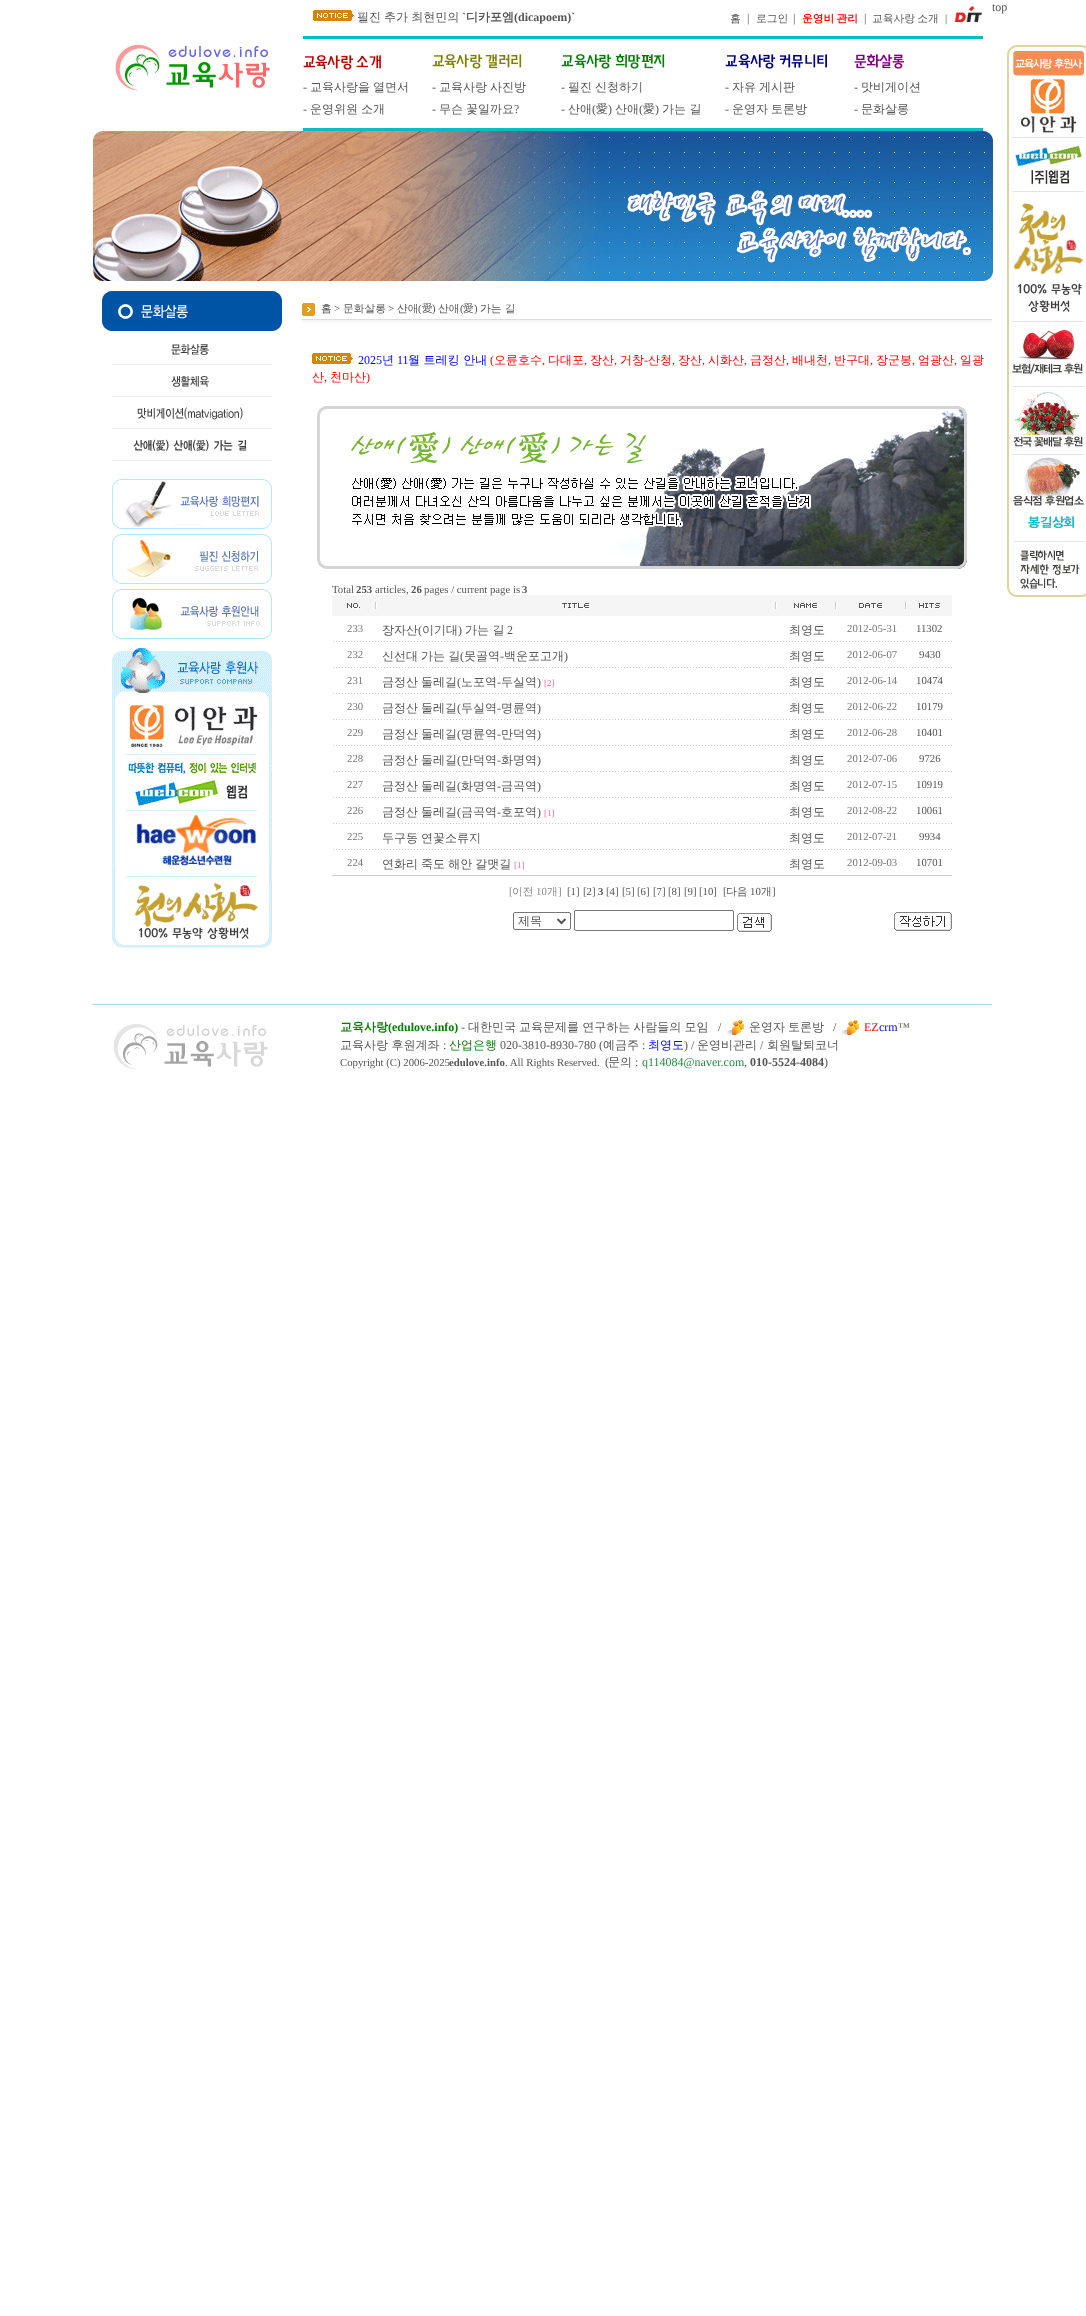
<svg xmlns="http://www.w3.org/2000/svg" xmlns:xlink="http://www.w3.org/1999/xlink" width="1086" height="2316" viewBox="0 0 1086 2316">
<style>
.cls-1{font:12px Liberation Serif;fill:#555555}
.cls-2{font:500 10.75px WenQuanYi Zen Hei;fill:#555555}
.cls-3{font:10.75px Liberation Serif;fill:#555555}
.cls-4{font:12px Liberation Serif;fill:#0000ff}
.cls-5{font:500 12px WenQuanYi Zen Hei;fill:#0000ff}
.cls-6{font:12px Liberation Serif;fill:#ff0000}
.cls-7{font:500 12px WenQuanYi Zen Hei;fill:#ff0000}
.cls-8{font:bold 10.75px Liberation Serif;fill:#555555}
.cls-9{font:10.75px Liberation Serif;fill:#777777}
.cls-10{font:500 12px WenQuanYi Zen Hei;fill:#555555}
.cls-11{font:9px Liberation Serif;fill:#f468a1}
.cls-12{font:10.75px Liberation Serif;fill:#888888}
.cls-13{font:500 10.75px WenQuanYi Zen Hei;fill:#888888}
.cls-14{font:bold 12px WenQuanYi Zen Hei;fill:#008000}
.cls-15{font:bold 12px Liberation Serif;fill:#008000}
.cls-16{font:500 12px WenQuanYi Zen Hei;fill:#008000}
.cls-17{font:12px Liberation Serif;fill:#218d44}
.cls-18{font:bold 12px Liberation Serif;fill:#555555}
.cls-19{font:bold 12px WenQuanYi Zen Hei;fill:#555555}
.cls-20{font:bold 10.75px WenQuanYi Zen Hei;fill:#ff0000}
.cls-21{font:10.75px Liberation Serif;fill:#008000}
</style>
<rect width="100%" height="100%" fill="#ffffff"/>
<image xlink:href="image0.png" x="1007" y="45" width="79" height="552"/>
<image xlink:href="image1.png" x="102" y="291" width="180" height="40"/>
<image xlink:href="image2.png" x="171" y="344" width="38" height="11"/>
<rect fill="#efefef" x="112" y="364" width="160" height="1"/>
<image xlink:href="image3.png" x="171" y="376" width="38" height="11"/>
<rect fill="#efefef" x="112" y="396" width="160" height="1"/>
<image xlink:href="image4.png" x="137" y="407" width="106" height="13"/>
<rect fill="#efefef" x="112" y="428" width="160" height="1"/>
<image xlink:href="image5.png" x="133" y="439" width="114" height="12"/>
<rect fill="#efefef" x="112" y="460" width="160" height="1"/>
<image xlink:href="image6.png" x="112" y="479" width="160" height="50"/>
<image xlink:href="image7.png" x="112" y="534" width="160" height="50"/>
<image xlink:href="image8.png" x="112" y="589" width="160" height="50"/>
<image xlink:href="image9.png" x="112" y="648" width="160" height="300"/>
<image xlink:href="image10.png" x="302" y="303" width="13" height="13"/>
<rect fill="#dddddd" x="302" y="319" width="690" height="1"/>
<rect fill="#f6f6f6" x="302" y="320" width="690" height="2"/>
<image xlink:href="image11.png" x="312" y="353" width="43" height="11"/>
<image xlink:href="image12.png" x="317" y="406" width="650" height="163"/>
<rect fill="#f5f5f5" x="332" y="595" width="620" height="21"/>
<image xlink:href="image13.png" x="347" y="603" width="14" height="6"/>
<image xlink:href="image14.png" x="375" y="602" width="2" height="7"/>
<image xlink:href="image15.png" x="562" y="603" width="28" height="6"/>
<image xlink:href="image14.png" x="775" y="602" width="2" height="7"/>
<image xlink:href="image16.png" x="794" y="603" width="24" height="6"/>
<image xlink:href="image14.png" x="835" y="602" width="2" height="7"/>
<image xlink:href="image17.png" x="859" y="603" width="24" height="6"/>
<image xlink:href="image14.png" x="905" y="602" width="2" height="7"/>
<image xlink:href="image18.png" x="919" y="603" width="22" height="6"/>
<image xlink:href="image19.png" x="333" y="641" width="619" height="1"/>
<image xlink:href="image19.png" x="333" y="667" width="619" height="1"/>
<image xlink:href="image19.png" x="333" y="693" width="619" height="1"/>
<image xlink:href="image19.png" x="333" y="719" width="619" height="1"/>
<image xlink:href="image19.png" x="333" y="745" width="619" height="1"/>
<image xlink:href="image19.png" x="333" y="771" width="619" height="1"/>
<image xlink:href="image19.png" x="333" y="797" width="619" height="1"/>
<image xlink:href="image19.png" x="333" y="823" width="619" height="1"/>
<image xlink:href="image19.png" x="333" y="849" width="619" height="1"/>
<rect fill="#cccccc" x="332" y="875" width="620" height="1"/>
<rect fill="none" stroke="#767676" x="513.5" y="912.5" width="57" height="17" rx="1.5"/>
<path fill="none" stroke="#555555" stroke-width="2" d="M557.5 919L561.5 923L565.5 919"/>
<rect fill="none" stroke="#767676" x="574.5" y="910.5" width="159" height="20" rx="1.5"/>
<image xlink:href="image20.png" x="737" y="913" width="35" height="19"/>
<image xlink:href="image21.png" x="894" y="912" width="58" height="19"/>
<rect fill="#add8e6" x="92" y="1004" width="900" height="1"/>
<image xlink:href="image22.png" x="113" y="1024" width="155" height="46"/>
<image xlink:href="image23.png" x="727" y="1020" width="17" height="15"/>
<image xlink:href="image23.png" x="842" y="1020" width="17" height="15"/>
<image xlink:href="image24.png" x="115" y="45" width="155" height="46"/>
<image xlink:href="image11.png" x="313" y="10" width="43" height="11"/>
<image xlink:href="image25.png" x="954" y="6" width="28" height="16"/>
<rect fill="#00c0c0" x="303" y="36" width="680" height="3"/>
<image xlink:href="image26.png" x="303" y="55" width="78" height="15"/>
<image xlink:href="image27.png" x="432" y="54" width="90" height="15"/>
<image xlink:href="image28.png" x="561" y="54" width="104" height="15"/>
<image xlink:href="image29.png" x="725" y="54" width="102" height="15"/>
<image xlink:href="image30.png" x="854" y="54" width="50" height="15"/>
<rect fill="#00c0c0" x="303" y="128" width="680" height="3"/>
<image xlink:href="image31.png" x="93" y="131" width="900" height="150"/>
<text class="cls-1" x="992" y="11">top</text>
<text class="cls-2" x="321" y="312">홈</text>
<text class="cls-3" x="334" y="312">&gt;</text>
<text class="cls-2" x="343" y="312">문화살롱</text>
<text class="cls-3" x="388" y="312">&gt;</text>
<text class="cls-2" x="397" y="312">산애</text>
<text class="cls-3" x="418" y="312">(</text>
<text class="cls-2" x="422" y="312">愛</text>
<text class="cls-3" x="432" y="312">)</text>
<text class="cls-2" x="438" y="312">산애</text>
<text class="cls-3" x="460" y="312">(</text>
<text class="cls-2" x="463" y="312">愛</text>
<text class="cls-3" x="474" y="312">)</text>
<text class="cls-2" x="480" y="312">가는 길</text>
<text class="cls-4" x="358" y="364">2025</text>
<text class="cls-5" x="382" y="364">년</text>
<text class="cls-4" x="397" y="364">11</text>
<text class="cls-5" x="408" y="364">월 트레킹 안내</text>
<text class="cls-6" x="490" y="364">(</text>
<text class="cls-7" x="494" y="364">오륜호수</text>
<text class="cls-7" x="548" y="364">다대포</text>
<text class="cls-7" x="590" y="364">장산</text>
<text class="cls-7" x="620" y="364">거창</text>
<text class="cls-6" x="644" y="364">-</text>
<text class="cls-7" x="648" y="364">산청</text>
<text class="cls-7" x="678" y="364">장산</text>
<text class="cls-7" x="708" y="364">시화산</text>
<text class="cls-7" x="750" y="364">금정산</text>
<text class="cls-7" x="792" y="364">배내천</text>
<text class="cls-7" x="834" y="364">반구대</text>
<text class="cls-7" x="876" y="364">장군봉</text>
<text class="cls-7" x="918" y="364">엄광산</text>
<text class="cls-7" x="960" y="364">일광</text>
<text class="cls-6" x="542" y="364">,</text>
<text class="cls-6" x="584" y="364">,</text>
<text class="cls-6" x="614" y="364">,</text>
<text class="cls-6" x="672" y="364">,</text>
<text class="cls-6" x="702" y="364">,</text>
<text class="cls-6" x="744" y="364">,</text>
<text class="cls-6" x="786" y="364">,</text>
<text class="cls-6" x="828" y="364">,</text>
<text class="cls-6" x="870" y="364">,</text>
<text class="cls-6" x="912" y="364">,</text>
<text class="cls-6" x="954" y="364">,</text>
<text class="cls-7" x="312" y="381">산</text>
<text class="cls-6" x="324" y="381">,</text>
<text class="cls-7" x="330" y="381">천마산</text>
<text class="cls-6" x="366" y="381">)</text>
<text class="cls-3" x="332" y="593">Total</text>
<text class="cls-8" x="356" y="593">253</text>
<text class="cls-3" x="375" y="593">articles,</text>
<text class="cls-8" x="411" y="593">26</text>
<text class="cls-3" x="424" y="593">pages / current page is</text>
<text class="cls-8" x="522" y="593">3</text>
<text class="cls-9" x="347" y="632">233</text>
<text class="cls-10" x="382" y="634">장자산</text>
<text class="cls-1" x="418" y="634">(</text>
<text class="cls-10" x="422" y="634">이기대</text>
<text class="cls-1" x="458" y="634">)</text>
<text class="cls-10" x="465" y="634">가는 길</text>
<text class="cls-1" x="507" y="634">2</text>
<text class="cls-10" x="789" y="634">최영도</text>
<text class="cls-9" x="847" y="632">2012-05-31</text>
<text class="cls-3" x="916" y="632">11302</text>
<text class="cls-9" x="347" y="658">232</text>
<text class="cls-10" x="382" y="660" word-spacing="-0.5">신선대 가는 길</text>
<text class="cls-1" x="460" y="660">(</text>
<text class="cls-10" x="464" y="660">못골역</text>
<text class="cls-1" x="500" y="660">-</text>
<text class="cls-10" x="504" y="660">백운포고개</text>
<text class="cls-1" x="564" y="660">)</text>
<text class="cls-10" x="789" y="660">최영도</text>
<text class="cls-9" x="847" y="658">2012-06-07</text>
<text class="cls-3" x="919" y="658">9430</text>
<text class="cls-9" x="347" y="684">231</text>
<text class="cls-10" x="382" y="686" word-spacing="-0.5">금정산 둘레길</text>
<text class="cls-1" x="457" y="686">(</text>
<text class="cls-10" x="461" y="686">노포역</text>
<text class="cls-1" x="497" y="686">-</text>
<text class="cls-10" x="501" y="686">두실역</text>
<text class="cls-1" x="537" y="686">)</text>
<text class="cls-11" x="544" y="686">[2]</text>
<text class="cls-10" x="789" y="686">최영도</text>
<text class="cls-9" x="847" y="684">2012-06-14</text>
<text class="cls-3" x="916" y="684">10474</text>
<text class="cls-9" x="347" y="710">230</text>
<text class="cls-10" x="382" y="712" word-spacing="-0.5">금정산 둘레길</text>
<text class="cls-1" x="457" y="712">(</text>
<text class="cls-10" x="461" y="712">두실역</text>
<text class="cls-1" x="497" y="712">-</text>
<text class="cls-10" x="501" y="712">명륜역</text>
<text class="cls-1" x="537" y="712">)</text>
<text class="cls-10" x="789" y="712">최영도</text>
<text class="cls-9" x="847" y="710">2012-06-22</text>
<text class="cls-3" x="916" y="710">10179</text>
<text class="cls-9" x="347" y="736">229</text>
<text class="cls-10" x="382" y="738" word-spacing="-0.5">금정산 둘레길</text>
<text class="cls-1" x="457" y="738">(</text>
<text class="cls-10" x="461" y="738">명륜역</text>
<text class="cls-1" x="497" y="738">-</text>
<text class="cls-10" x="501" y="738">만덕역</text>
<text class="cls-1" x="537" y="738">)</text>
<text class="cls-10" x="789" y="738">최영도</text>
<text class="cls-9" x="847" y="736">2012-06-28</text>
<text class="cls-3" x="916" y="736">10401</text>
<text class="cls-9" x="347" y="762">228</text>
<text class="cls-10" x="382" y="764" word-spacing="-0.5">금정산 둘레길</text>
<text class="cls-1" x="457" y="764">(</text>
<text class="cls-10" x="461" y="764">만덕역</text>
<text class="cls-1" x="497" y="764">-</text>
<text class="cls-10" x="501" y="764">화명역</text>
<text class="cls-1" x="537" y="764">)</text>
<text class="cls-10" x="789" y="764">최영도</text>
<text class="cls-9" x="847" y="762">2012-07-06</text>
<text class="cls-3" x="919" y="762">9726</text>
<text class="cls-9" x="347" y="788">227</text>
<text class="cls-10" x="382" y="790" word-spacing="-0.5">금정산 둘레길</text>
<text class="cls-1" x="457" y="790">(</text>
<text class="cls-10" x="461" y="790">화명역</text>
<text class="cls-1" x="497" y="790">-</text>
<text class="cls-10" x="501" y="790">금곡역</text>
<text class="cls-1" x="537" y="790">)</text>
<text class="cls-10" x="789" y="790">최영도</text>
<text class="cls-9" x="847" y="788">2012-07-15</text>
<text class="cls-3" x="916" y="788">10919</text>
<text class="cls-9" x="347" y="814">226</text>
<text class="cls-10" x="382" y="816" word-spacing="-0.5">금정산 둘레길</text>
<text class="cls-1" x="457" y="816">(</text>
<text class="cls-10" x="461" y="816">금곡역</text>
<text class="cls-1" x="497" y="816">-</text>
<text class="cls-10" x="501" y="816">호포역</text>
<text class="cls-1" x="537" y="816">)</text>
<text class="cls-11" x="544" y="816">[1]</text>
<text class="cls-10" x="789" y="816">최영도</text>
<text class="cls-9" x="847" y="814">2012-08-22</text>
<text class="cls-3" x="916" y="814">10061</text>
<text class="cls-9" x="347" y="840">225</text>
<text class="cls-10" x="382" y="842" word-spacing="-0.5">두구동 연꽃소류지</text>
<text class="cls-10" x="789" y="842">최영도</text>
<text class="cls-9" x="847" y="840">2012-07-21</text>
<text class="cls-3" x="919" y="840">9934</text>
<text class="cls-9" x="347" y="866">224</text>
<text class="cls-10" x="382" y="868" word-spacing="-0.5">연화리 죽도 해안 갈맷길</text>
<text class="cls-11" x="514" y="868">[1]</text>
<text class="cls-10" x="789" y="868">최영도</text>
<text class="cls-9" x="847" y="866">2012-09-03</text>
<text class="cls-3" x="916" y="866">10701</text>
<text class="cls-12" x="509" y="895">[</text>
<text class="cls-13" x="512" y="895">이전</text>
<text class="cls-12" x="536" y="895">10</text>
<text class="cls-13" x="547" y="895">개</text>
<text class="cls-12" x="558" y="895">]</text>
<text class="cls-3" x="567" y="895">[1]</text>
<text class="cls-3" x="583" y="895">[2]</text>
<text class="cls-8" x="598" y="895">3</text>
<text class="cls-3" x="606" y="895">[4]</text>
<text class="cls-3" x="622" y="895">[5]</text>
<text class="cls-3" x="637" y="895">[6]</text>
<text class="cls-3" x="653" y="895">[7]</text>
<text class="cls-3" x="668" y="895">[8]</text>
<text class="cls-3" x="684" y="895">[9]</text>
<text class="cls-3" x="699" y="895">[10]</text>
<text class="cls-3" x="723" y="895">[</text>
<text class="cls-2" x="726" y="895">다음</text>
<text class="cls-3" x="750" y="895">10</text>
<text class="cls-2" x="761" y="895">개</text>
<text class="cls-3" x="772" y="895">]</text>
<text class="cls-10" x="518" y="925">제목</text>
<text class="cls-14" x="340" y="1031">교육사랑</text>
<text class="cls-15" x="388" y="1031">(edulove.info)</text>
<text class="cls-1" x="461" y="1031">-</text>
<text class="cls-10" x="468" y="1031" word-spacing="-0.5">대한민국 교육문제를 연구하는 사람들의 모임</text>
<text class="cls-1" x="718" y="1031">/</text>
<text class="cls-10" x="749" y="1031" word-spacing="-0.5">운영자 토론방</text>
<text class="cls-1" x="833" y="1031">/</text>
<text class="cls-6" x="864" y="1031">EZ</text>
<text class="cls-4" x="879" y="1031">crm</text>
<text class="cls-1" x="898" y="1031">™</text>
<text class="cls-10" x="340" y="1049">교육사랑 후원계좌</text>
<text class="cls-1" x="443" y="1049">:</text>
<text class="cls-16" x="449" y="1049">산업은행</text>
<text class="cls-1" x="500" y="1049">020-3810-8930-780 (</text>
<text class="cls-10" x="603" y="1049">예금주</text>
<text class="cls-1" x="642" y="1049">:</text>
<text class="cls-5" x="648" y="1049">최영도</text>
<text class="cls-1" x="684" y="1049">) /</text>
<text class="cls-10" x="697" y="1049">운영비관리</text>
<text class="cls-1" x="760" y="1049">/</text>
<text class="cls-10" x="767" y="1049">회원탈퇴코너</text>
<text class="cls-3" x="340" y="1066">Copyright (C) 2006-2025</text>
<text class="cls-8" x="449" y="1066">edulove.info</text>
<text class="cls-3" x="505" y="1066">. All Rights Reserved.</text>
<text class="cls-1" x="605" y="1066">(</text>
<text class="cls-10" x="608" y="1066">문의</text>
<text class="cls-1" x="635" y="1066">:</text>
<text class="cls-17" x="642" y="1066">q114084@naver.com</text>
<text class="cls-1" x="744" y="1066">,</text>
<text class="cls-18" x="750" y="1066">010-5524-4084</text>
<text class="cls-1" x="824" y="1066">)</text>
<text class="cls-10" x="357" y="21" word-spacing="-0.5">필진 추가 최현민의</text>
<text class="cls-18" x="462" y="21">`</text>
<text class="cls-19" x="466" y="21">디카포엠</text>
<text class="cls-18" x="514" y="21">(dicapoem)`</text>
<text class="cls-2" x="730" y="22">홈</text>
<text class="cls-1" x="747" y="22">|</text>
<text class="cls-2" x="756" y="22">로그인</text>
<text class="cls-1" x="793" y="22">|</text>
<text class="cls-20" x="802" y="22" word-spacing="-1">운영비 관리</text>
<text class="cls-1" x="864" y="22">|</text>
<text class="cls-2" x="872" y="22" word-spacing="-1">교육사랑 소개</text>
<text class="cls-21" x="945" y="22">|</text>
<text class="cls-1" x="303" y="91">-</text>
<text class="cls-10" x="310" y="91" word-spacing="-0.5">교육사랑을 열면서</text>
<text class="cls-1" x="303" y="113">-</text>
<text class="cls-10" x="310" y="113" word-spacing="-0.5">운영위원 소개</text>
<text class="cls-1" x="432" y="91">-</text>
<text class="cls-10" x="439" y="91" word-spacing="-0.5">교육사랑 사진방</text>
<text class="cls-1" x="432" y="113">-</text>
<text class="cls-10" x="439" y="113" word-spacing="-0.5">무슨 꽃일까요</text>
<text class="cls-1" x="514" y="113">?</text>
<text class="cls-1" x="561" y="91">-</text>
<text class="cls-10" x="568" y="91" word-spacing="-0.5">필진 신청하기</text>
<text class="cls-1" x="561" y="113">-</text>
<text class="cls-10" x="568" y="113">산애</text>
<text class="cls-1" x="592" y="113">(</text>
<text class="cls-10" x="596" y="113">愛</text>
<text class="cls-1" x="608" y="113">)</text>
<text class="cls-10" x="615" y="113">산애</text>
<text class="cls-1" x="639" y="113">(</text>
<text class="cls-10" x="643" y="113">愛</text>
<text class="cls-1" x="655" y="113">)</text>
<text class="cls-10" x="662" y="113">가는 길</text>
<text class="cls-1" x="725" y="91">-</text>
<text class="cls-10" x="732" y="91" word-spacing="-0.5">자유 게시판</text>
<text class="cls-1" x="725" y="113">-</text>
<text class="cls-10" x="732" y="113" word-spacing="-0.5">운영자 토론방</text>
<text class="cls-1" x="854" y="91">-</text>
<text class="cls-10" x="861" y="91">맛비게이션</text>
<text class="cls-1" x="854" y="113">-</text>
<text class="cls-10" x="861" y="113">문화살롱</text>
</svg>
